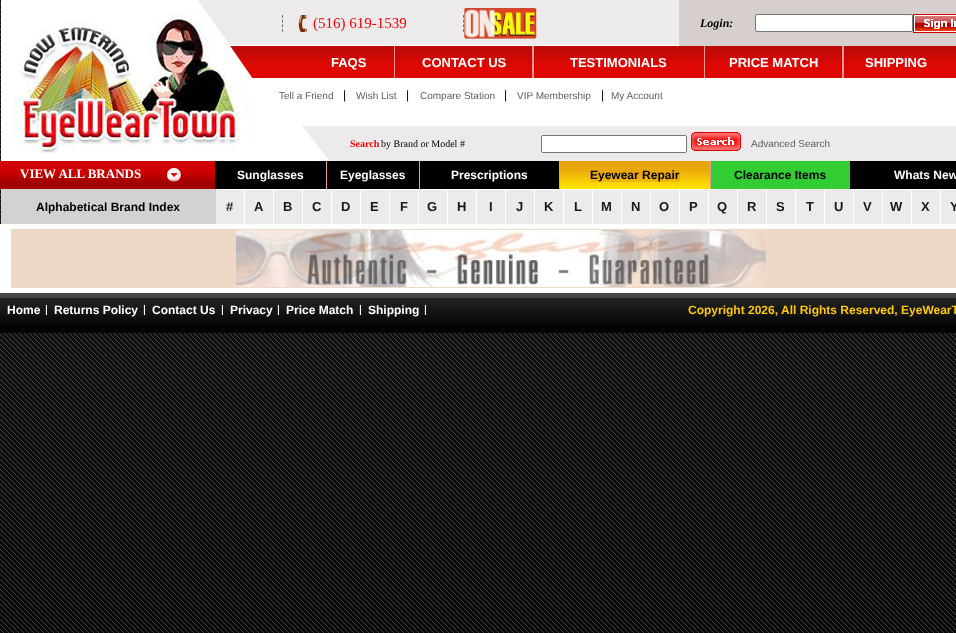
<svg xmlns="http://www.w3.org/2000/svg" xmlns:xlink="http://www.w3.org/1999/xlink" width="956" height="633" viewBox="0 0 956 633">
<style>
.cls-1{font:15px Liberation Serif;fill:#f70104}
.cls-2{font:italic bold 12px Liberation Serif;fill:#000000}
.cls-3{font:bold 13px Liberation Sans;fill:#ffffff}
.cls-4{font:10px Liberation Sans;fill:#5f5c5c}
.cls-5{font:12px Liberation Sans;fill:#000000}
.cls-6{font:bold 10px Liberation Serif;fill:#ff0000}
.cls-7{font:10px Liberation Serif;fill:#000000}
.cls-8{font:bold 13px Liberation Serif;fill:#ffffff}
.cls-9{font:bold 12px Liberation Sans;fill:#ffffff}
.cls-10{font:bold 12px Liberation Sans;fill:#000000}
.cls-11{font:bold 13px Liberation Sans;fill:#191919}
.cls-12{font:bold 12px Liberation Sans;fill:#fdc70b}
</style>
<rect width="100%" height="100%" fill="#ffffff"/>
<image xlink:href="image0.png" x="0" y="0" width="956" height="633"/>
<rect fill="#ffffff" x="1" y="0" width="955" height="161"/>
<image xlink:href="image1.png" x="12" y="0" width="240" height="153"/>
<image xlink:href="image2.png" x="252" y="0" width="704" height="78"/>
<image xlink:href="image3.png" x="298" y="15" width="10" height="17"/>
<path fill="none" stroke="#767575" stroke-dasharray="3 1.67" d="M463.5 15V32"/>
<path fill="none" stroke="#767575" stroke-dasharray="3 1.67" d="M282.5 15V32"/>
<image xlink:href="image4.png" x="464" y="8" width="73" height="31"/>
<rect fill="#d6cfce" x="679" y="0" width="277" height="46"/>
<rect fill="#ffffff" stroke="#767676" x="755.5" y="14.5" width="157" height="17" rx="1.5"/>
<image xlink:href="image5.png" x="913" y="14" width="43" height="19"/>
<rect fill="#eb9996" x="394" y="46" width="1" height="32"/>
<rect fill="#eb9996" x="532" y="46" width="2" height="32"/>
<rect fill="#eb9996" x="704" y="46" width="1" height="32"/>
<rect fill="#eb9996" x="842" y="46" width="2" height="32"/>
<rect fill="#eceaea" x="330" y="126" width="626" height="35"/>
<image xlink:href="image6.png" x="296" y="126" width="34" height="35"/>
<rect fill="#ffffff" stroke="#767676" x="541.5" y="135.5" width="145" height="17" rx="1.5"/>
<image xlink:href="image7.png" x="691" y="132" width="50" height="19"/>
<image xlink:href="image8.png" x="0" y="161" width="215" height="28"/>
<rect fill="#000000" x="215" y="161" width="111" height="28"/>
<rect fill="#eb9996" x="326" y="161" width="1" height="28"/>
<rect fill="#000000" x="327" y="161" width="92" height="28"/>
<rect fill="#eb9996" x="419" y="161" width="1" height="28"/>
<rect fill="#000000" x="420" y="161" width="139" height="28"/>
<rect fill="#eb9996" x="559" y="161" width="1" height="28"/>
<image xlink:href="image9.png" x="560" y="161" width="150" height="28"/>
<image xlink:href="image10.png" x="590" y="169" width="90" height="13"/>
<rect fill="#eb9996" x="710" y="161" width="1" height="28"/>
<rect fill="#32cd32" x="711" y="161" width="139" height="28"/>
<rect fill="#000000" x="850" y="161" width="106" height="28"/>
<rect fill="#d3d2d2" x="1" y="189" width="215" height="35"/>
<rect fill="#ffffff" x="216" y="189" width="740" height="35"/>
<rect fill="#eceaea" x="216" y="190" width="28" height="34"/>
<rect fill="#eceaea" x="245" y="190" width="28" height="34"/>
<rect fill="#eceaea" x="274" y="190" width="28" height="34"/>
<rect fill="#eceaea" x="303" y="190" width="28" height="34"/>
<rect fill="#eceaea" x="332" y="190" width="28" height="34"/>
<rect fill="#eceaea" x="361" y="190" width="28" height="34"/>
<rect fill="#eceaea" x="390" y="190" width="28" height="34"/>
<rect fill="#eceaea" x="419" y="190" width="28" height="34"/>
<rect fill="#eceaea" x="448" y="190" width="28" height="34"/>
<rect fill="#eceaea" x="477" y="190" width="28" height="34"/>
<rect fill="#eceaea" x="506" y="190" width="28" height="34"/>
<rect fill="#eceaea" x="535" y="190" width="28" height="34"/>
<rect fill="#eceaea" x="564" y="190" width="28" height="34"/>
<rect fill="#eceaea" x="593" y="190" width="28" height="34"/>
<rect fill="#eceaea" x="622" y="190" width="28" height="34"/>
<rect fill="#eceaea" x="651" y="190" width="28" height="34"/>
<rect fill="#eceaea" x="680" y="190" width="28" height="34"/>
<rect fill="#eceaea" x="709" y="190" width="28" height="34"/>
<rect fill="#eceaea" x="738" y="190" width="28" height="34"/>
<rect fill="#eceaea" x="767" y="190" width="28" height="34"/>
<rect fill="#eceaea" x="796" y="190" width="28" height="34"/>
<rect fill="#eceaea" x="825" y="190" width="28" height="34"/>
<rect fill="#eceaea" x="854" y="190" width="28" height="34"/>
<rect fill="#eceaea" x="883" y="190" width="28" height="34"/>
<rect fill="#eceaea" x="912" y="190" width="28" height="34"/>
<rect fill="#eceaea" x="941" y="190" width="15" height="34"/>
<rect fill="#ffffff" x="0" y="224" width="956" height="69"/>
<rect fill="#eed9c6" x="11" y="229" width="945" height="59"/>
<image xlink:href="image11.png" x="236" y="230" width="530" height="57"/>
<image xlink:href="image12.png" x="0" y="293" width="956" height="40"/>
<image xlink:href="image13.png" x="45" y="305" width="2" height="10"/>
<image xlink:href="image13.png" x="143" y="305" width="2" height="10"/>
<image xlink:href="image13.png" x="221" y="305" width="2" height="10"/>
<image xlink:href="image13.png" x="277" y="305" width="2" height="10"/>
<image xlink:href="image13.png" x="359" y="305" width="2" height="10"/>
<image xlink:href="image13.png" x="424" y="305" width="2" height="10"/>
<text class="cls-1" x="313" y="28">(516) 619-1539</text>
<text class="cls-2" x="700" y="27">Login:</text>
<text class="cls-3" x="331" y="67">FAQS</text>
<text class="cls-3" x="422" y="67">CONTACT US</text>
<text class="cls-3" x="570" y="67">TESTIMONIALS</text>
<text class="cls-3" x="729" y="67">PRICE MATCH</text>
<text class="cls-3" x="865" y="67">SHIPPING</text>
<text class="cls-4" x="279" y="99">Tell a Friend</text>
<text class="cls-5" x="343" y="99">|</text>
<text class="cls-4" x="356" y="99">Wish List</text>
<text class="cls-5" x="406" y="99">|</text>
<text class="cls-4" x="420" y="99">Compare Station</text>
<text class="cls-5" x="504" y="99">|</text>
<text class="cls-4" x="517" y="99">VIP Membership</text>
<text class="cls-5" x="601" y="99">|</text>
<text class="cls-4" x="611" y="99">My Account</text>
<text class="cls-6" x="350" y="147">Search</text>
<text class="cls-7" x="381" y="147">by Brand or Model #</text>
<text class="cls-4" x="751" y="147">Advanced Search</text>
<text class="cls-8" x="20" y="178">VIEW ALL BRANDS</text>
<text class="cls-9" x="237" y="179">Sunglasses</text>
<text class="cls-9" x="340" y="179">Eyeglasses</text>
<text class="cls-9" x="451" y="179">Prescriptions</text>
<text class="cls-10" x="590" y="179">Eyewear Repair</text>
<text class="cls-10" x="734" y="179">Clearance Items</text>
<text class="cls-9" x="894" y="179">Whats New</text>
<text class="cls-10" x="36" y="211">Alphabetical Brand Index</text>
<text class="cls-11" x="226" y="211">#</text>
<text class="cls-11" x="254" y="211">A</text>
<text class="cls-11" x="283" y="211">B</text>
<text class="cls-11" x="312" y="211">C</text>
<text class="cls-11" x="341" y="211">D</text>
<text class="cls-11" x="370" y="211">E</text>
<text class="cls-11" x="400" y="211">F</text>
<text class="cls-11" x="427" y="211">G</text>
<text class="cls-11" x="457" y="211">H</text>
<text class="cls-11" x="489" y="211">I</text>
<text class="cls-11" x="516" y="211">J</text>
<text class="cls-11" x="544" y="211">K</text>
<text class="cls-11" x="574" y="211">L</text>
<text class="cls-11" x="601" y="211">M</text>
<text class="cls-11" x="631" y="211">N</text>
<text class="cls-11" x="659" y="211">O</text>
<text class="cls-11" x="689" y="211">P</text>
<text class="cls-11" x="717" y="211">Q</text>
<text class="cls-11" x="747" y="211">R</text>
<text class="cls-11" x="776" y="211">S</text>
<text class="cls-11" x="806" y="211">T</text>
<text class="cls-11" x="834" y="211">U</text>
<text class="cls-11" x="863" y="211">V</text>
<text class="cls-11" x="890" y="211">W</text>
<text class="cls-11" x="921" y="211">X</text>
<text class="cls-11" x="950" y="211">Y</text>
<text class="cls-9" x="7" y="314">Home</text>
<text class="cls-9" x="54" y="314">Returns Policy</text>
<text class="cls-9" x="152" y="314">Contact Us</text>
<text class="cls-9" x="230" y="314">Privacy</text>
<text class="cls-9" x="286" y="314">Price Match</text>
<text class="cls-9" x="368" y="314">Shipping</text>
<text class="cls-12" x="688" y="314">Copyright 2026,</text>
<text class="cls-12" x="781" y="314">All Rights Reserved, EyeWearT</text>
</svg>
